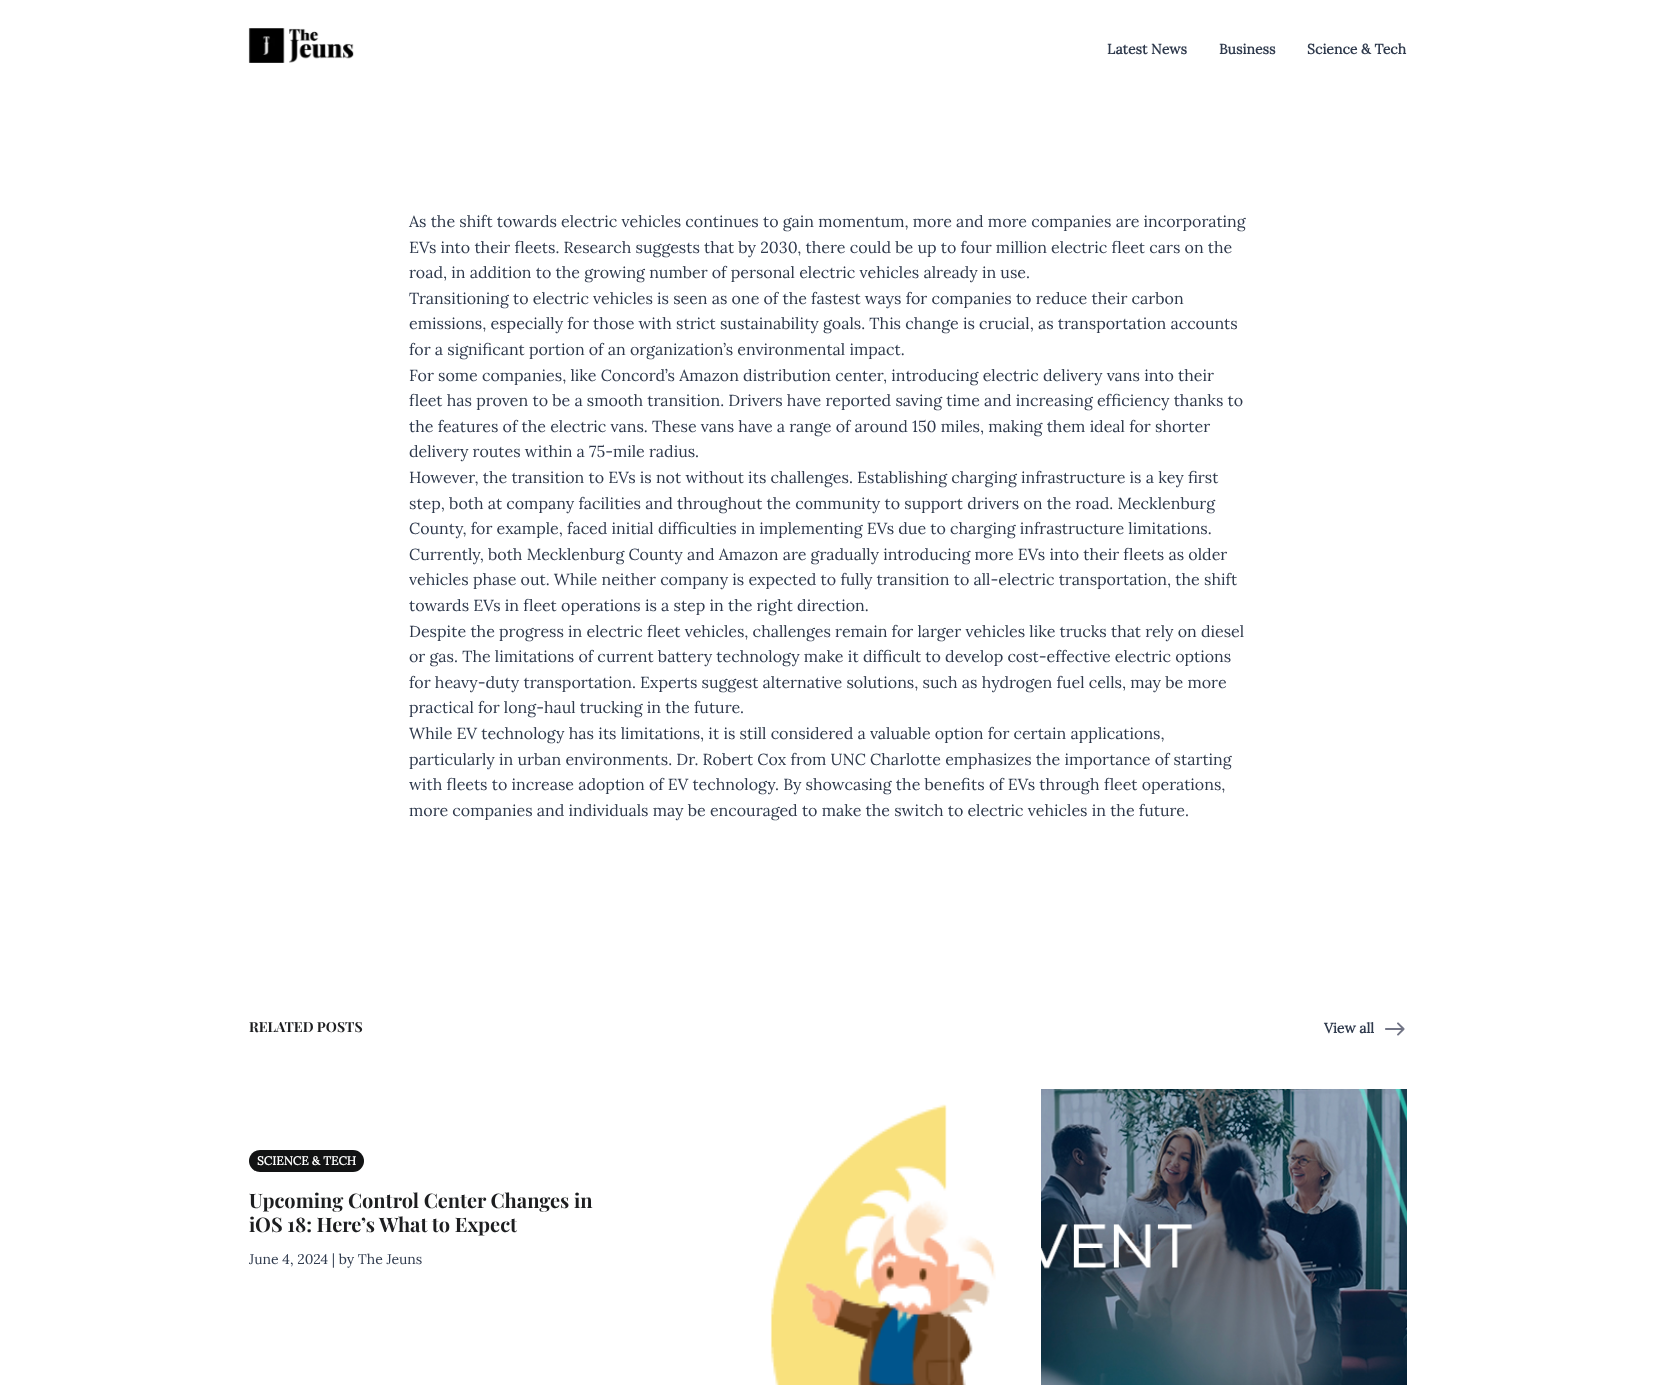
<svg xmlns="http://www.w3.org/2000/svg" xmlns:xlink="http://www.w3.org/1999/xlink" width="1655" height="1385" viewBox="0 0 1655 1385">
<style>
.cls-1{font:bold 14px Lora;fill:#2e394c}
.cls-2{font:16px Lora;fill:#2e394c}
.cls-3{font:bold 14px Playfair Display;fill:#1d1e20}
.cls-4{font:bold 12px Lora;fill:#ffffff}
.cls-5{font:bold 20px Playfair Display;fill:#1d1e20}
.cls-6{font:14px Lora;fill:#2e394c}
</style>
<rect width="100%" height="100%" fill="#ffffff"/>
<image xlink:href="image0.png" x="248" y="28" width="106" height="35"/>
<image xlink:href="image1.png" x="1385" y="1022" width="20" height="14"/>
<rect fill="#121314" x="249" y="1150" width="115" height="22" rx="11"/>
<image xlink:href="image2.png" x="770" y="1104" width="226" height="281"/>
<image xlink:href="image3.png" x="1041" y="1089" width="366" height="296"/>
<text class="cls-1" x="1107" y="54">Latest News</text>
<text class="cls-1" x="1219" y="54">Business</text>
<text class="cls-1" x="1307" y="54">Science &amp; Tech</text>
<text class="cls-2"><tspan x="409" y="227">As the shift towards electric vehicles continues to gain momentum, more and more companies are incorporating</tspan><tspan x="409" y="253">EVs into their fleets. Research suggests that by 2030, there could be up to four million electric fleet cars on the</tspan><tspan x="409" y="278">road, in addition to the growing number of personal electric vehicles already in use.</tspan><tspan x="409" y="304">Transitioning to electric vehicles is seen as one of the fastest ways for companies to reduce their carbon</tspan><tspan x="409" y="329">emissions, especially for those with strict sustainability goals. This change is crucial, as transportation accounts</tspan><tspan x="409" y="355">for a significant portion of an organization’s environmental impact.</tspan><tspan x="409" y="381">For some companies, like Concord’s Amazon distribution center, introducing electric delivery vans into their</tspan><tspan x="409" y="406">fleet has proven to be a smooth transition. Drivers have reported saving time and increasing efficiency thanks to</tspan><tspan x="409" y="432">the features of the electric vans. These vans have a range of around 150 miles, making them ideal for shorter</tspan><tspan x="409" y="457">delivery routes within a 75-mile radius.</tspan><tspan x="409" y="483">However, the transition to EVs is not without its challenges. Establishing charging infrastructure is a key first</tspan><tspan x="409" y="509">step, both at company facilities and throughout the community to support drivers on the road. Mecklenburg</tspan><tspan x="409" y="534">County, for example, faced initial difficulties in implementing EVs due to charging infrastructure limitations.</tspan><tspan x="409" y="560">Currently, both Mecklenburg County and Amazon are gradually introducing more EVs into their fleets as older</tspan><tspan x="409" y="585">vehicles phase out. While neither company is expected to fully transition to all-electric transportation, the shift</tspan><tspan x="409" y="611">towards EVs in fleet operations is a step in the right direction.</tspan><tspan x="409" y="637">Despite the progress in electric fleet vehicles, challenges remain for larger vehicles like trucks that rely on diesel</tspan><tspan x="409" y="662">or gas. The limitations of current battery technology make it difficult to develop cost-effective electric options</tspan><tspan x="409" y="688">for heavy-duty transportation. Experts suggest alternative solutions, such as hydrogen fuel cells, may be more</tspan><tspan x="409" y="713">practical for long-haul trucking in the future.</tspan><tspan x="409" y="739">While EV technology has its limitations, it is still considered a valuable option for certain applications,</tspan><tspan x="409" y="765">particularly in urban environments. Dr. Robert Cox from UNC Charlotte emphasizes the importance of starting</tspan><tspan x="409" y="790">with fleets to increase adoption of EV technology. By showcasing the benefits of EVs through fleet operations,</tspan><tspan x="409" y="816">more companies and individuals may be encouraged to make the switch to electric vehicles in the future.</tspan></text>
<text class="cls-3" x="249" y="1032">RELATED POSTS</text>
<text class="cls-1" x="1324" y="1033">View all</text>
<text class="cls-4" x="257" y="1165">SCIENCE &amp; TECH</text>
<text class="cls-5"><tspan x="249" y="1208">Upcoming Control Center Changes in</tspan><tspan x="249" y="1232">iOS 18: Here’s What to Expect</tspan></text>
<text class="cls-6" x="249" y="1264">June 4, 2024 | by The Jeuns</text>
</svg>
